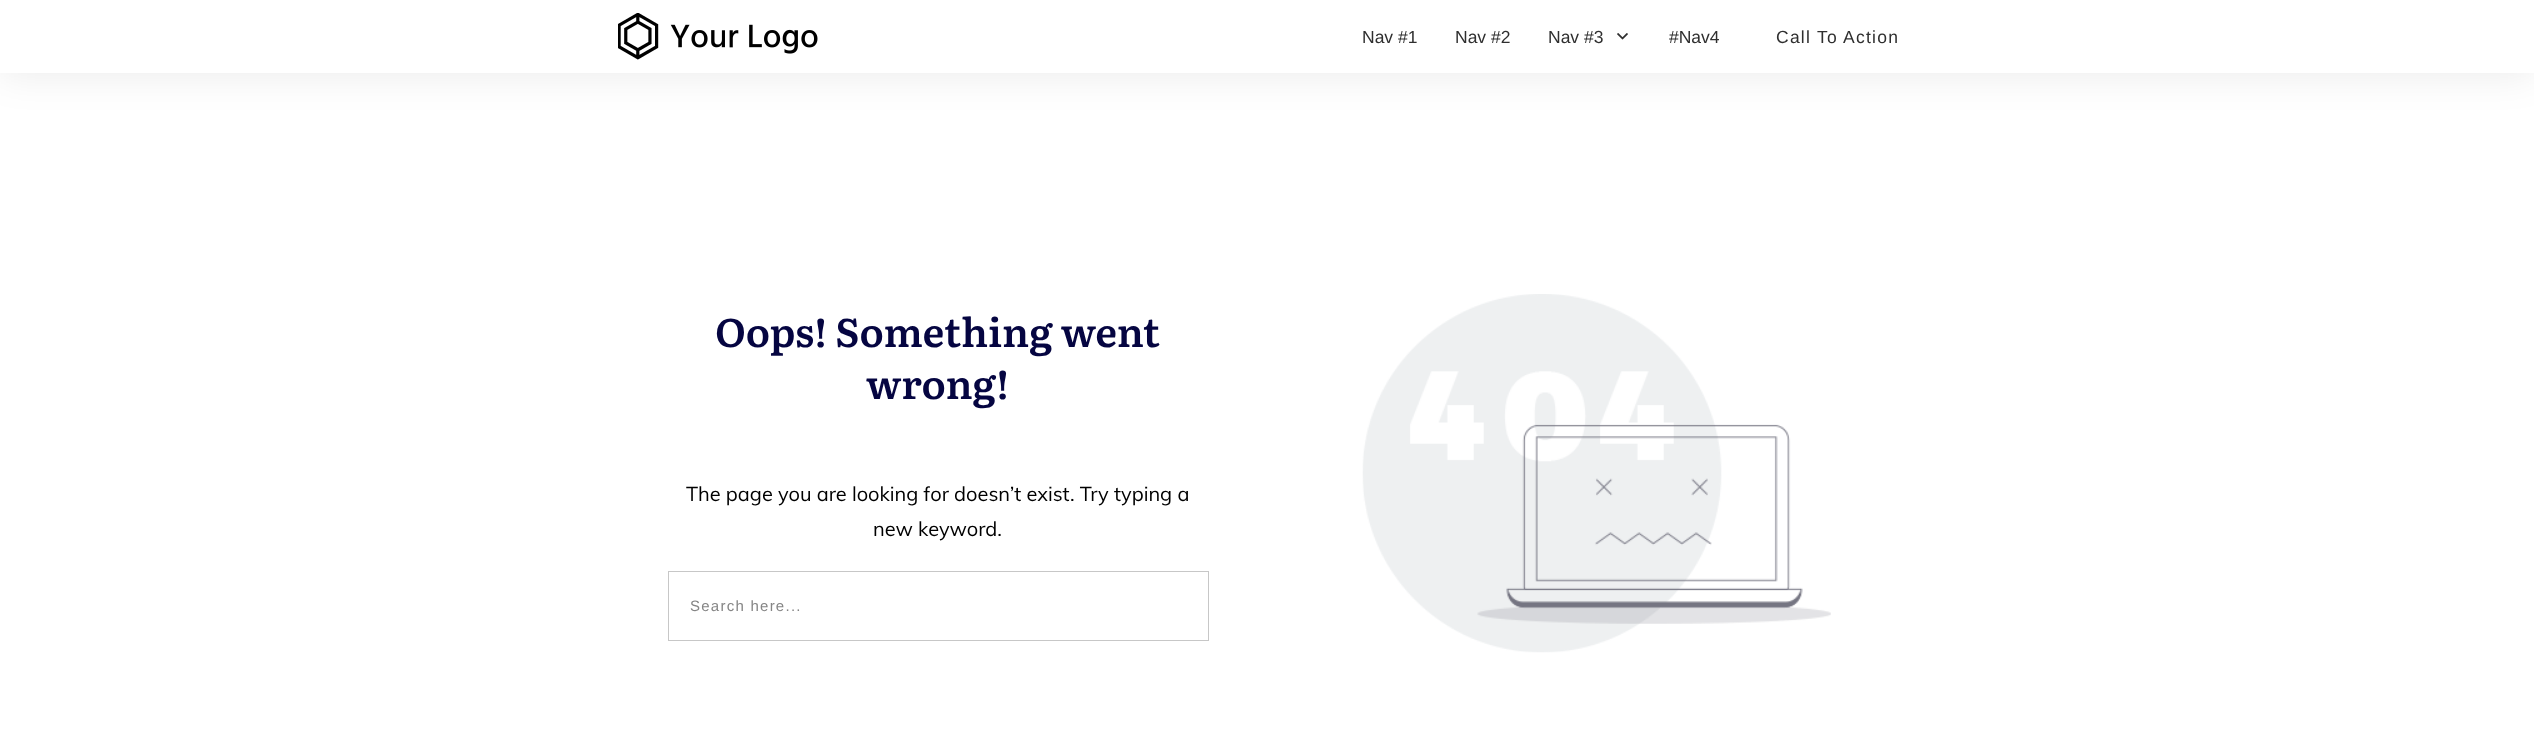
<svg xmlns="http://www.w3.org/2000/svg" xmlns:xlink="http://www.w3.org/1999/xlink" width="2534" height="737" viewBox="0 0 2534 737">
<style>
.cls-1{font:17.5px Liberation Sans;fill:#2f2f2f}
.cls-2{font:17.5px Liberation Sans;letter-spacing:1.25px;fill:#2f2f2f}
.cls-3{font:600 40px Literata;fill:#050541}
.cls-4{font:20px Muli;fill:#000000}
.cls-5{font:15px Liberation Sans;letter-spacing:1.25px;fill:#858585}
</style>
<rect width="100%" height="100%" fill="#ffffff"/>
<rect fill="#000000" fill-opacity="0.08" filter="blur(19px)" x="0" y="3" width="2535" height="72"/>
<rect fill="#ffffff" x="0" y="0" width="2534" height="73"/>
<image xlink:href="image0.png" x="618" y="13" width="200" height="47"/>
<image xlink:href="image1.png" x="1617" y="33" width="11" height="7"/>
<rect fill="none" stroke="#c7c7c7" x="668.5" y="571.5" width="540" height="69"/>
<image xlink:href="image2.png" x="1362" y="294" width="469" height="359"/>
<text class="cls-1" x="1362" y="43">Nav #1</text>
<text class="cls-1" x="1455" y="43">Nav #2</text>
<text class="cls-1" x="1548" y="43">Nav #3</text>
<text class="cls-1" x="1669" y="43">#Nav4</text>
<text class="cls-2" x="1776" y="43">Call To Action</text>
<text class="cls-3" x="715" y="347">Oops! Something went</text>
<text class="cls-3" x="866" y="399">wrong!</text>
<text class="cls-4" x="686" y="501">The page you are looking for doesn’t exist. Try typing a</text>
<text class="cls-4" x="873" y="536">new keyword.</text>
<text class="cls-5" x="690" y="611">Search here...</text>
</svg>
